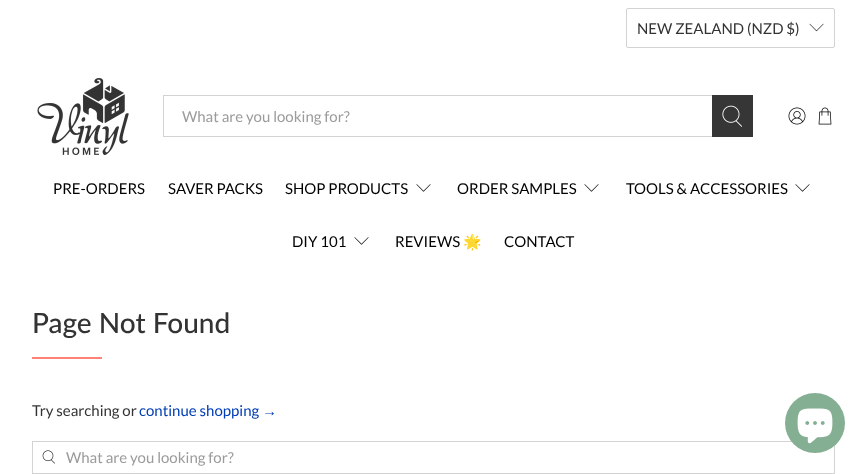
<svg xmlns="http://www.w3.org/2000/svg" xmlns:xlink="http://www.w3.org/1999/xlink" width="867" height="474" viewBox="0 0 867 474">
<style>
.cls-1{font:15px Lato;fill:#333333}
.cls-2{font:15px Lato;fill:#9b9b9b}
.cls-3{font:15px Lato;fill:#000000}
.cls-4{font:15px Noto Color Emoji;fill:#000000}
.cls-5{font:500 28px Lato;fill:#333333}
.cls-6{font:15px Lato;fill:#013db4}
.cls-7{font:15px Liberation Sans;fill:#013db4}
</style>
<rect width="100%" height="100%" fill="#ffffff"/>
<rect fill="none" stroke="#d3d3d3" x="626.5" y="8.5" width="208" height="39" rx="1.5"/>
<image xlink:href="image0.png" x="809" y="23" width="15" height="9"/>
<image xlink:href="image1.png" x="37" y="78" width="92" height="77"/>
<rect fill="none" stroke="#d3d3d3" x="163.5" y="95.5" width="549" height="41"/>
<rect fill="#363636" x="712" y="95" width="41" height="42"/>
<image xlink:href="image2.png" x="722" y="105" width="20" height="22"/>
<image xlink:href="image3.png" x="788" y="107" width="18" height="18"/>
<image xlink:href="image4.png" x="818" y="107" width="14" height="18"/>
<image xlink:href="image5.png" x="416" y="184" width="15" height="8"/>
<image xlink:href="image5.png" x="584" y="184" width="15" height="8"/>
<image xlink:href="image5.png" x="795" y="184" width="15" height="8"/>
<image xlink:href="image5.png" x="354" y="237" width="15" height="8"/>
<rect fill="#ff8277" x="32" y="357" width="70" height="2"/>
<rect fill="none" stroke="#d3d3d3" x="32.5" y="441.5" width="802" height="32"/>
<image xlink:href="image6.png" x="42" y="450" width="13" height="14"/>
<circle fill="#85af92" cx="815" cy="423" r="30"/>
<image xlink:href="image7.png" x="797" y="408" width="36" height="36"/>
<text class="cls-1" x="637" y="34">NEW ZEALAND (NZD $)</text>
<text class="cls-2" x="182" y="122">What are you looking for?</text>
<text class="cls-3" x="53" y="194">PRE-ORDERS</text>
<text class="cls-3" x="168" y="194">SAVER PACKS</text>
<text class="cls-3" x="285" y="194">SHOP PRODUCTS</text>
<text class="cls-3" x="457" y="194">ORDER SAMPLES</text>
<text class="cls-3" x="626" y="194">TOOLS &amp; ACCESSORIES</text>
<text class="cls-3" x="292" y="247">DIY 101</text>
<text class="cls-3" x="395" y="247">REVIEWS</text>
<text class="cls-4" x="463" y="247">🌟</text>
<text class="cls-3" x="504" y="247">CONTACT</text>
<text class="cls-5" x="32" y="333">Page Not Found</text>
<text class="cls-1" x="32" y="416">Try searching or</text>
<text class="cls-6" x="139" y="416">continue shopping</text>
<text class="cls-7" x="262" y="416">→</text>
<text class="cls-2" x="66" y="463">What are you looking for?</text>
</svg>
